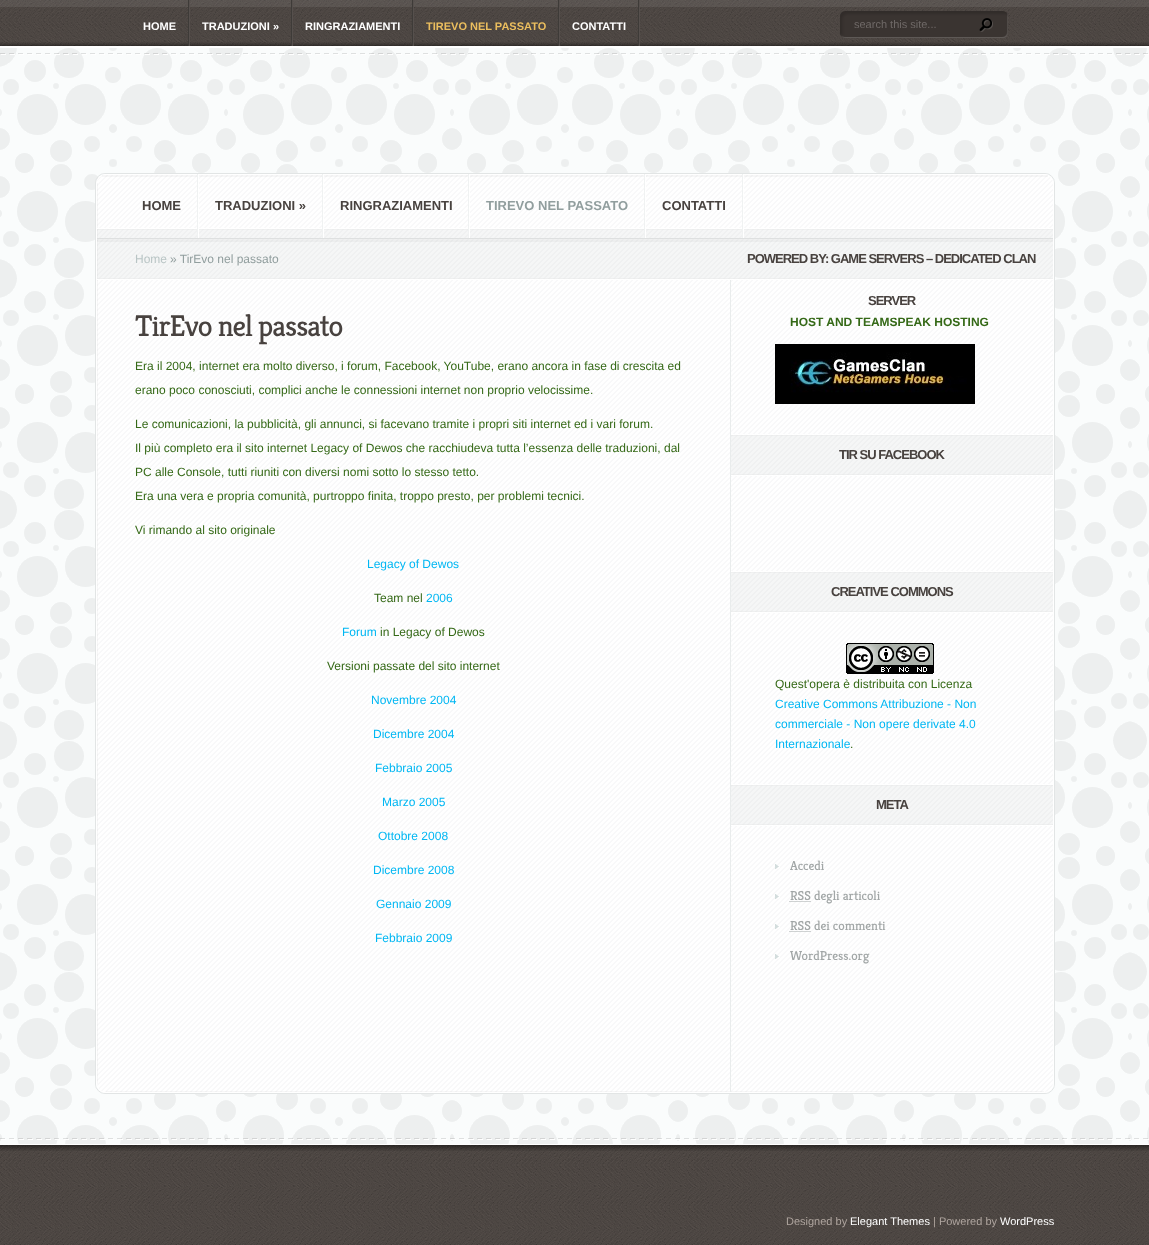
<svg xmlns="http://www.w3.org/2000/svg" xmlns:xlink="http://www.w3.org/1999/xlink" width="1149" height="1245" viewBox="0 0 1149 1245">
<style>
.cls-1{font:bold 11px Liberation Sans;fill:#ffffff}
.cls-2{font:bold 11px Liberation Sans;fill:#ebbe5e}
.cls-3{font:11px Liberation Sans;fill:#6f6967}
.cls-4{font:bold 13px Liberation Sans;fill:#48423f}
.cls-5{font:bold 13px Liberation Sans;fill:#919e9e}
.cls-6{font:12px Liberation Sans;fill:#b9c5c5}
.cls-7{font:12px Liberation Sans;fill:#919e9e}
.cls-8{font:30px Kreon;letter-spacing:-1px;fill:#48423f}
.cls-9{font:12px Liberation Sans;fill:#356917}
.cls-10{font:12px Liberation Sans;fill:#00b7f3}
.cls-11{font:bold 13px Liberation Sans;letter-spacing:-1px;fill:#48423f}
.cls-12{font:bold 12px Liberation Sans;fill:#356917}
.cls-13{font:13px Kreon;fill:#a1a6a6}
.cls-14{font:11px Liberation Sans;fill:#afa59f}
.cls-15{font:11px Liberation Sans;fill:#ffffff}
</style>
<rect width="100%" height="100%" fill="#ffffff"/>
<image xlink:href="image0.png" x="0" y="0" width="1149" height="46"/>
<rect fill="#ffffff" fill-opacity="0.08" x="0" y="0" width="1149" height="7"/>
<image xlink:href="image4.png" x="0" y="42" width="1149" height="4"/>
<image xlink:href="image1.png" x="188" y="0" width="2" height="46"/>
<image xlink:href="image1.png" x="291" y="0" width="2" height="46"/>
<image xlink:href="image1.png" x="412" y="0" width="2" height="46"/>
<image xlink:href="image1.png" x="558" y="0" width="2" height="46"/>
<image xlink:href="image1.png" x="638" y="0" width="2" height="46"/>
<image xlink:href="image2.png" x="840" y="11" width="168" height="27"/>
<image xlink:href="image3.png" x="979" y="18" width="14" height="14"/>
<rect fill="#fafcfc" x="0" y="48" width="1149" height="1096"/>
<image xlink:href="image5.png" x="0" y="48" width="1149" height="1096"/>
<image xlink:href="image6.png" x="0" y="53" width="1149" height="2"/>
<rect fill="none" stroke="#e2e5e5" x="95.5" y="173.5" width="959" height="920" rx="9.5"/>
<image xlink:href="image7.png" x="96" y="174" width="958" height="919"/>
<rect fill="none" stroke="#ffffff" x="96.5" y="174.5" width="957" height="918" rx="9.5"/>
<image xlink:href="image8.png" x="97" y="183" width="1" height="901"/>
<rect fill="#000000" fill-opacity="0.03" x="102" y="175" width="946" height="2"/>
<image xlink:href="image9.png" x="106" y="1091" width="938" height="1"/>
<image xlink:href="image10.png" x="97" y="228" width="956" height="10"/>
<image xlink:href="image11.png" x="197" y="174" width="2" height="64"/>
<image xlink:href="image11.png" x="322" y="174" width="2" height="64"/>
<image xlink:href="image11.png" x="468" y="174" width="2" height="64"/>
<image xlink:href="image11.png" x="644" y="174" width="2" height="64"/>
<image xlink:href="image11.png" x="742" y="174" width="2" height="64"/>
<image xlink:href="image12.png" x="97" y="239" width="634" height="41"/>
<image xlink:href="image13.png" x="731" y="239" width="322" height="41"/>
<rect fill="#000000" fill-opacity="0.03" x="97" y="240" width="956" height="2"/>
<rect fill="#dee0e0" x="97" y="238" width="956" height="1"/>
<rect fill="#e9ecec" x="730" y="280" width="1" height="812"/>
<image xlink:href="image14.png" x="775" y="344" width="200" height="60"/>
<image xlink:href="image15.png" x="731" y="434" width="322" height="42"/>
<image xlink:href="image16.png" x="731" y="571" width="322" height="42"/>
<image xlink:href="image17.png" x="846" y="643" width="88" height="31"/>
<image xlink:href="image15.png" x="731" y="784" width="322" height="42"/>
<image xlink:href="image18.png" x="775" y="864" width="5" height="5"/>
<image xlink:href="image18.png" x="775" y="894" width="5" height="5"/>
<path fill="none" stroke="#a1a6a6" stroke-dasharray="1 1" d="M789.5 901.5H810.5"/>
<image xlink:href="image18.png" x="775" y="924" width="5" height="5"/>
<path fill="none" stroke="#a1a6a6" stroke-dasharray="1 1" d="M789.5 931.5H810.5"/>
<image xlink:href="image18.png" x="775" y="954" width="5" height="5"/>
<image xlink:href="image19.png" x="0" y="1138" width="1149" height="2"/>
<image xlink:href="image20.png" x="0" y="1145" width="1149" height="100"/>
<image xlink:href="image21.png" x="0" y="1145" width="1149" height="6"/>
<text class="cls-1" x="143" y="30">HOME</text>
<text class="cls-1" x="202" y="30">TRADUZIONI »</text>
<text class="cls-1" x="305" y="30">RINGRAZIAMENTI</text>
<text class="cls-2" x="426" y="30">TIREVO NEL PASSATO</text>
<text class="cls-1" x="572" y="30">CONTATTI</text>
<text class="cls-3" x="854" y="28">search this site...</text>
<text class="cls-4" x="142" y="210">HOME</text>
<text class="cls-4" x="215" y="210">TRADUZIONI »</text>
<text class="cls-4" x="340" y="210">RINGRAZIAMENTI</text>
<text class="cls-5" x="486" y="210">TIREVO NEL PASSATO</text>
<text class="cls-4" x="662" y="210">CONTATTI</text>
<text class="cls-6" x="135" y="263">Home</text>
<text class="cls-7" x="170" y="263">» TirEvo nel passato</text>
<text class="cls-8" x="135" y="336">TirEvo nel passato</text>
<text class="cls-9" x="135" y="370">Era il 2004, internet era molto diverso, i forum, Facebook, YouTube, erano ancora in fase di crescita ed</text>
<text class="cls-9" x="135" y="394">erano poco conosciuti, complici anche le connessioni internet non proprio velocissime.</text>
<text class="cls-9" x="135" y="428">Le comunicazioni, la pubblicità, gli annunci, si facevano tramite i propri siti internet ed i vari forum.</text>
<text class="cls-9" x="135" y="452">Il più completo era il sito internet Legacy of Dewos che racchiudeva tutta l’essenza delle traduzioni, dal</text>
<text class="cls-9" x="135" y="476">PC alle Console, tutti riuniti con diversi nomi sotto lo stesso tetto.</text>
<text class="cls-9" x="135" y="500">Era una vera e propria comunità, purtroppo finita, troppo presto, per problemi tecnici.</text>
<text class="cls-9" x="135" y="534">Vi rimando al sito originale</text>
<text class="cls-10" x="367" y="568">Legacy of Dewos</text>
<text class="cls-9" x="374" y="602">Team nel</text>
<text class="cls-10" x="426" y="602">2006</text>
<text class="cls-10" x="342" y="636">Forum</text>
<text class="cls-9" x="380" y="636">in Legacy of Dewos</text>
<text class="cls-9" x="327" y="670">Versioni passate del sito internet</text>
<text class="cls-10" x="371" y="704">Novembre 2004</text>
<text class="cls-10" x="373" y="738">Dicembre 2004</text>
<text class="cls-10" x="375" y="772">Febbraio 2005</text>
<text class="cls-10" x="382" y="806">Marzo 2005</text>
<text class="cls-10" x="378" y="840">Ottobre 2008</text>
<text class="cls-10" x="373" y="874">Dicembre 2008</text>
<text class="cls-10" x="376" y="908">Gennaio 2009</text>
<text class="cls-10" x="375" y="942">Febbraio 2009</text>
<text class="cls-11" x="747" y="263">POWERED BY: GAME SERVERS – DEDICATED CLAN</text>
<text class="cls-11" x="868" y="305">SERVER</text>
<text class="cls-12" x="790" y="326">HOST AND TEAMSPEAK HOSTING</text>
<text class="cls-11" x="839" y="459">TIR SU FACEBOOK</text>
<text class="cls-11" x="831" y="596">CREATIVE COMMONS</text>
<text class="cls-9" x="775" y="688">Quest'opera è distribuita con Licenza</text>
<text class="cls-10"><tspan x="775" y="708">Creative Commons Attribuzione - Non</tspan><tspan x="775" y="728">commerciale - Non opere derivate 4.0</tspan><tspan x="775" y="748">Internazionale</tspan></text>
<text class="cls-9" x="850" y="748">.</text>
<text class="cls-11" x="876" y="809">META</text>
<text class="cls-13" x="790" y="870">Accedi</text>
<text class="cls-13" x="790" y="900">RSS degli articoli</text>
<text class="cls-13" x="790" y="930">RSS dei commenti</text>
<text class="cls-13" x="790" y="960">WordPress.org</text>
<text class="cls-14" x="786" y="1225">Designed by</text>
<text class="cls-15" x="850" y="1225">Elegant Themes</text>
<text class="cls-14" x="933" y="1225">| Powered by</text>
<text class="cls-15" x="1000" y="1225">WordPress</text>
</svg>
